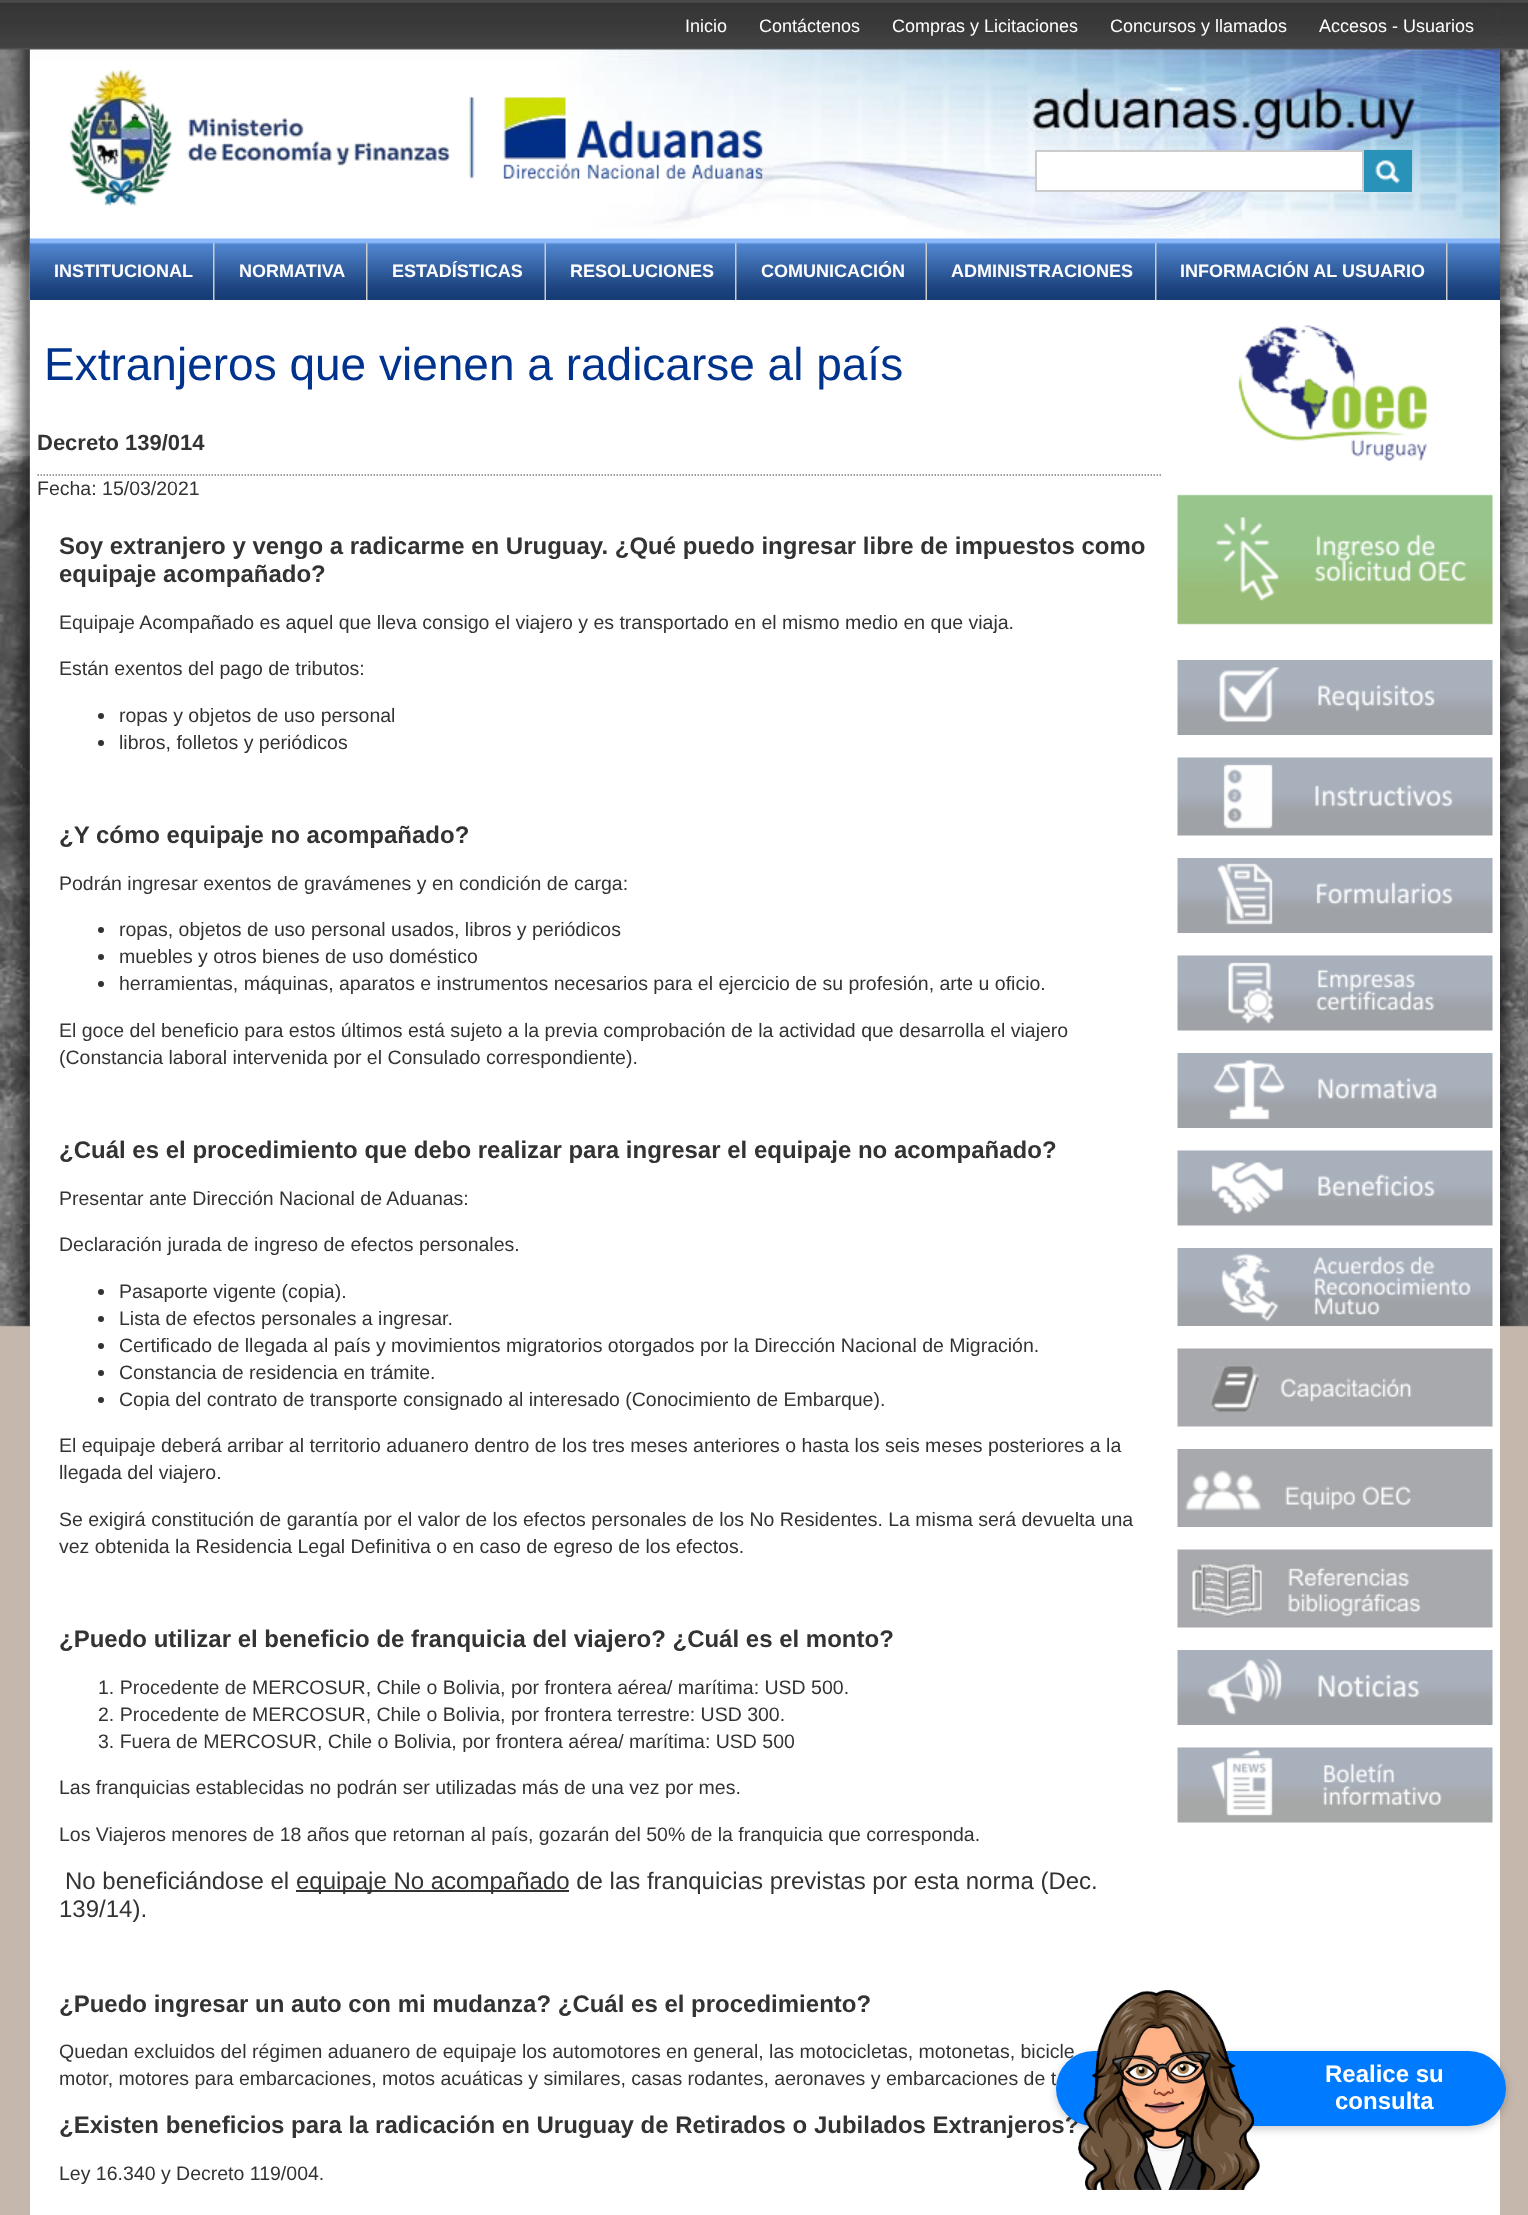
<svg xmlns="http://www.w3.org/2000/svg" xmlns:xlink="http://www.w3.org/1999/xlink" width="1528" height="2215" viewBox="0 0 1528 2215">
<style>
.cls-1{font:18px Liberation Sans;fill:#ffffff}
.cls-2{font:bold 18px Liberation Sans;fill:#ffffff}
.cls-3{font:46px Liberation Sans;fill:#00338e}
.cls-4{font:bold 22px Liberation Sans;fill:#333333}
.cls-5{font:19.5px Liberation Sans;fill:#333333}
.cls-6{font:bold 24px Liberation Sans;fill:#333333}
.cls-7{font:24px Liberation Sans;fill:#333333}
.cls-8{font:bold 24px Liberation Sans;fill:#ffffff}
</style>
<rect width="100%" height="100%" fill="#c5b7ac"/>
<image xlink:href="image0.png" x="0" y="49" width="1528" height="1278"/>
<image xlink:href="image1.png" x="0" y="0" width="1528" height="50"/>
<image xlink:href="image2.png" x="30" y="2" width="1470" height="237"/>
<image xlink:href="image3.png" x="68" y="69" width="695" height="137"/>
<rect fill="#ffffff" stroke="#cccccc" stroke-width="2" x="1036" y="151" width="327" height="40"/>
<rect fill="#2992b8" x="1364" y="150" width="48" height="42"/>
<image xlink:href="image4.png" x="1375" y="160" width="25" height="24"/>
<image xlink:href="image5.png" x="30" y="238" width="1470" height="62"/>
<image xlink:href="image6.png" x="213" y="242" width="2" height="58"/>
<image xlink:href="image6.png" x="366" y="242" width="2" height="58"/>
<image xlink:href="image7.png" x="544" y="242" width="2" height="58"/>
<image xlink:href="image6.png" x="735" y="242" width="2" height="58"/>
<image xlink:href="image7.png" x="925" y="242" width="2" height="58"/>
<image xlink:href="image6.png" x="1155" y="242" width="2" height="58"/>
<image xlink:href="image6.png" x="1446" y="242" width="2" height="58"/>
<rect fill="#ffffff" x="30" y="300" width="1470" height="1915"/>
<rect fill="#000000" fill-opacity="0.2" filter="blur(4px)" x="1056" y="2054" width="450" height="75" rx="37.5"/>
<path fill="none" stroke="#808080" stroke-width="1.5" stroke-dasharray="1.5 1.5" d="M37.5 475H1162.5"/>
<circle fill="#333333" cx="101" cy="716" r="3"/>
<circle fill="#333333" cx="101" cy="743" r="3"/>
<circle fill="#333333" cx="101" cy="930" r="3"/>
<circle fill="#333333" cx="101" cy="957" r="3"/>
<circle fill="#333333" cx="101" cy="984" r="3"/>
<circle fill="#333333" cx="101" cy="1292" r="3"/>
<circle fill="#333333" cx="101" cy="1319" r="3"/>
<circle fill="#333333" cx="101" cy="1346" r="3"/>
<circle fill="#333333" cx="101" cy="1373" r="3"/>
<circle fill="#333333" cx="101" cy="1400" r="3"/>
<rect fill="#333333" x="296" y="1890" width="273" height="2"/>
<image xlink:href="image9.png" x="1238" y="325" width="189" height="136"/>
<image xlink:href="image10.png" x="1177" y="494" width="316" height="131"/>
<image xlink:href="image11.png" x="1177" y="660" width="316" height="75"/>
<image xlink:href="image12.png" x="1177" y="757" width="316" height="79"/>
<image xlink:href="image13.png" x="1177" y="858" width="316" height="75"/>
<image xlink:href="image14.png" x="1177" y="955" width="316" height="76"/>
<image xlink:href="image15.png" x="1177" y="1053" width="316" height="75"/>
<image xlink:href="image16.png" x="1177" y="1150" width="316" height="76"/>
<image xlink:href="image17.png" x="1177" y="1248" width="316" height="78"/>
<image xlink:href="image18.png" x="1177" y="1348" width="316" height="79"/>
<image xlink:href="image19.png" x="1177" y="1449" width="316" height="78"/>
<image xlink:href="image20.png" x="1177" y="1549" width="316" height="79"/>
<image xlink:href="image21.png" x="1177" y="1650" width="316" height="75"/>
<image xlink:href="image22.png" x="1177" y="1747" width="316" height="76"/>
<text class="cls-1" x="685" y="32">Inicio</text>
<text class="cls-1" x="759" y="32">Contáctenos</text>
<text class="cls-1" x="892" y="32">Compras y Licitaciones</text>
<text class="cls-1" x="1110" y="32">Concursos y llamados</text>
<text class="cls-1" x="1319" y="32">Accesos - Usuarios</text>
<text class="cls-2" x="54" y="277">INSTITUCIONAL</text>
<text class="cls-2" x="239" y="277">NORMATIVA</text>
<text class="cls-2" x="392" y="277">ESTADÍSTICAS</text>
<text class="cls-2" x="570" y="277">RESOLUCIONES</text>
<text class="cls-2" x="761" y="277">COMUNICACIÓN</text>
<text class="cls-2" x="951" y="277">ADMINISTRACIONES</text>
<text class="cls-2" x="1180" y="277">INFORMACIÓN AL USUARIO</text>
<text class="cls-3" x="44" y="380">Extranjeros que vienen a radicarse al país</text>
<text class="cls-4" x="37" y="450">Decreto 139/014</text>
<text class="cls-5" x="37" y="495">Fecha: 15/03/2021</text>
<text class="cls-6"><tspan x="59" y="554">Soy extranjero y vengo a radicarme en Uruguay. ¿Qué puedo ingresar libre de impuestos como</tspan><tspan x="59" y="582">equipaje acompañado?</tspan></text>
<text class="cls-5" x="59" y="629">Equipaje Acompañado es aquel que lleva consigo el viajero y es transportado en el mismo medio en que viaja.</text>
<text class="cls-5" x="59" y="675">Están exentos del pago de tributos:</text>
<text class="cls-5"><tspan x="119" y="722">ropas y objetos de uso personal</tspan><tspan x="119" y="749">libros, folletos y periódicos</tspan></text>
<text class="cls-6" x="59" y="843">¿Y cómo equipaje no acompañado?</text>
<text class="cls-5" x="59" y="890">Podrán ingresar exentos de gravámenes y en condición de carga:</text>
<text class="cls-5"><tspan x="119" y="936">ropas, objetos de uso personal usados, libros y periódicos</tspan><tspan x="119" y="963">muebles y otros bienes de uso doméstico</tspan><tspan x="119" y="990">herramientas, máquinas, aparatos e instrumentos necesarios para el ejercicio de su profesión, arte u oficio.</tspan></text>
<text class="cls-5"><tspan x="59" y="1037">El goce del beneficio para estos últimos está sujeto a la previa comprobación de la actividad que desarrolla el viajero</tspan><tspan x="59" y="1064">(Constancia laboral intervenida por el Consulado correspondiente).</tspan></text>
<text class="cls-6" x="59" y="1158">¿Cuál es el procedimiento que debo realizar para ingresar el equipaje no acompañado?</text>
<text class="cls-5" x="59" y="1205">Presentar ante Dirección Nacional de Aduanas:</text>
<text class="cls-5" x="59" y="1251">Declaración jurada de ingreso de efectos personales.</text>
<text class="cls-5"><tspan x="119" y="1298">Pasaporte vigente (copia).</tspan><tspan x="119" y="1325">Lista de efectos personales a ingresar.</tspan><tspan x="119" y="1352">Certificado de llegada al país y movimientos migratorios otorgados por la Dirección Nacional de Migración.</tspan><tspan x="119" y="1379">Constancia de residencia en trámite.</tspan><tspan x="119" y="1406">Copia del contrato de transporte consignado al interesado (Conocimiento de Embarque).</tspan></text>
<text class="cls-5"><tspan x="59" y="1452">El equipaje deberá arribar al territorio aduanero dentro de los tres meses anteriores o hasta los seis meses posteriores a la</tspan><tspan x="59" y="1479">llegada del viajero.</tspan></text>
<text class="cls-5"><tspan x="59" y="1526">Se exigirá constitución de garantía por el valor de los efectos personales de los No Residentes. La misma será devuelta una</tspan><tspan x="59" y="1553">vez obtenida la Residencia Legal Definitiva o en caso de egreso de los efectos.</tspan></text>
<text class="cls-6" x="59" y="1647">¿Puedo utilizar el beneficio de franquicia del viajero? ¿Cuál es el monto?</text>
<text class="cls-5"><tspan x="98" y="1694">1. Procedente de MERCOSUR, Chile o Bolivia, por frontera aérea/ marítima: USD 500.</tspan><tspan x="98" y="1721">2. Procedente de MERCOSUR, Chile o Bolivia, por frontera terrestre: USD 300.</tspan><tspan x="98" y="1748">3. Fuera de MERCOSUR, Chile o Bolivia, por frontera aérea/ marítima: USD 500</tspan></text>
<text class="cls-5" x="59" y="1794">Las franquicias establecidas no podrán ser utilizadas más de una vez por mes.</text>
<text class="cls-5" x="59" y="1841">Los Viajeros menores de 18 años que retornan al país, gozarán del 50% de la franquicia que corresponda.</text>
<text class="cls-7" x="65" y="1889">No beneficiándose el</text>
<text class="cls-7" x="296" y="1889">equipaje No acompañado de las franquicias previstas por esta norma (Dec.</text>
<text class="cls-7" x="59" y="1917">139/14).</text>
<text class="cls-6" x="59" y="2012">¿Puedo ingresar un auto con mi mudanza? ¿Cuál es el procedimiento?</text>
<text class="cls-5"><tspan x="59" y="2058">Quedan excluidos del régimen aduanero de equipaje los automotores en general, las motocicletas, motonetas, bicicle</tspan><tspan x="59" y="2085">motor, motores para embarcaciones, motos acuáticas y similares, casas rodantes, aeronaves y embarcaciones de t</tspan></text>
<text class="cls-6" x="59" y="2133">¿Existen beneficios para la radicación en Uruguay de Retirados o Jubilados Extranjeros?</text>
<rect fill="#007bff" x="1056" y="2051" width="450" height="75" rx="37.5"/>
<text class="cls-8" x="1335" y="2109">consulta</text>
<text class="cls-8" x="1325" y="2082">Realice su</text>
<image xlink:href="image8.png" x="1078" y="1990" width="183" height="200"/>
<text class="cls-5" x="59" y="2180">Ley 16.340 y Decreto 119/004.</text>
</svg>
